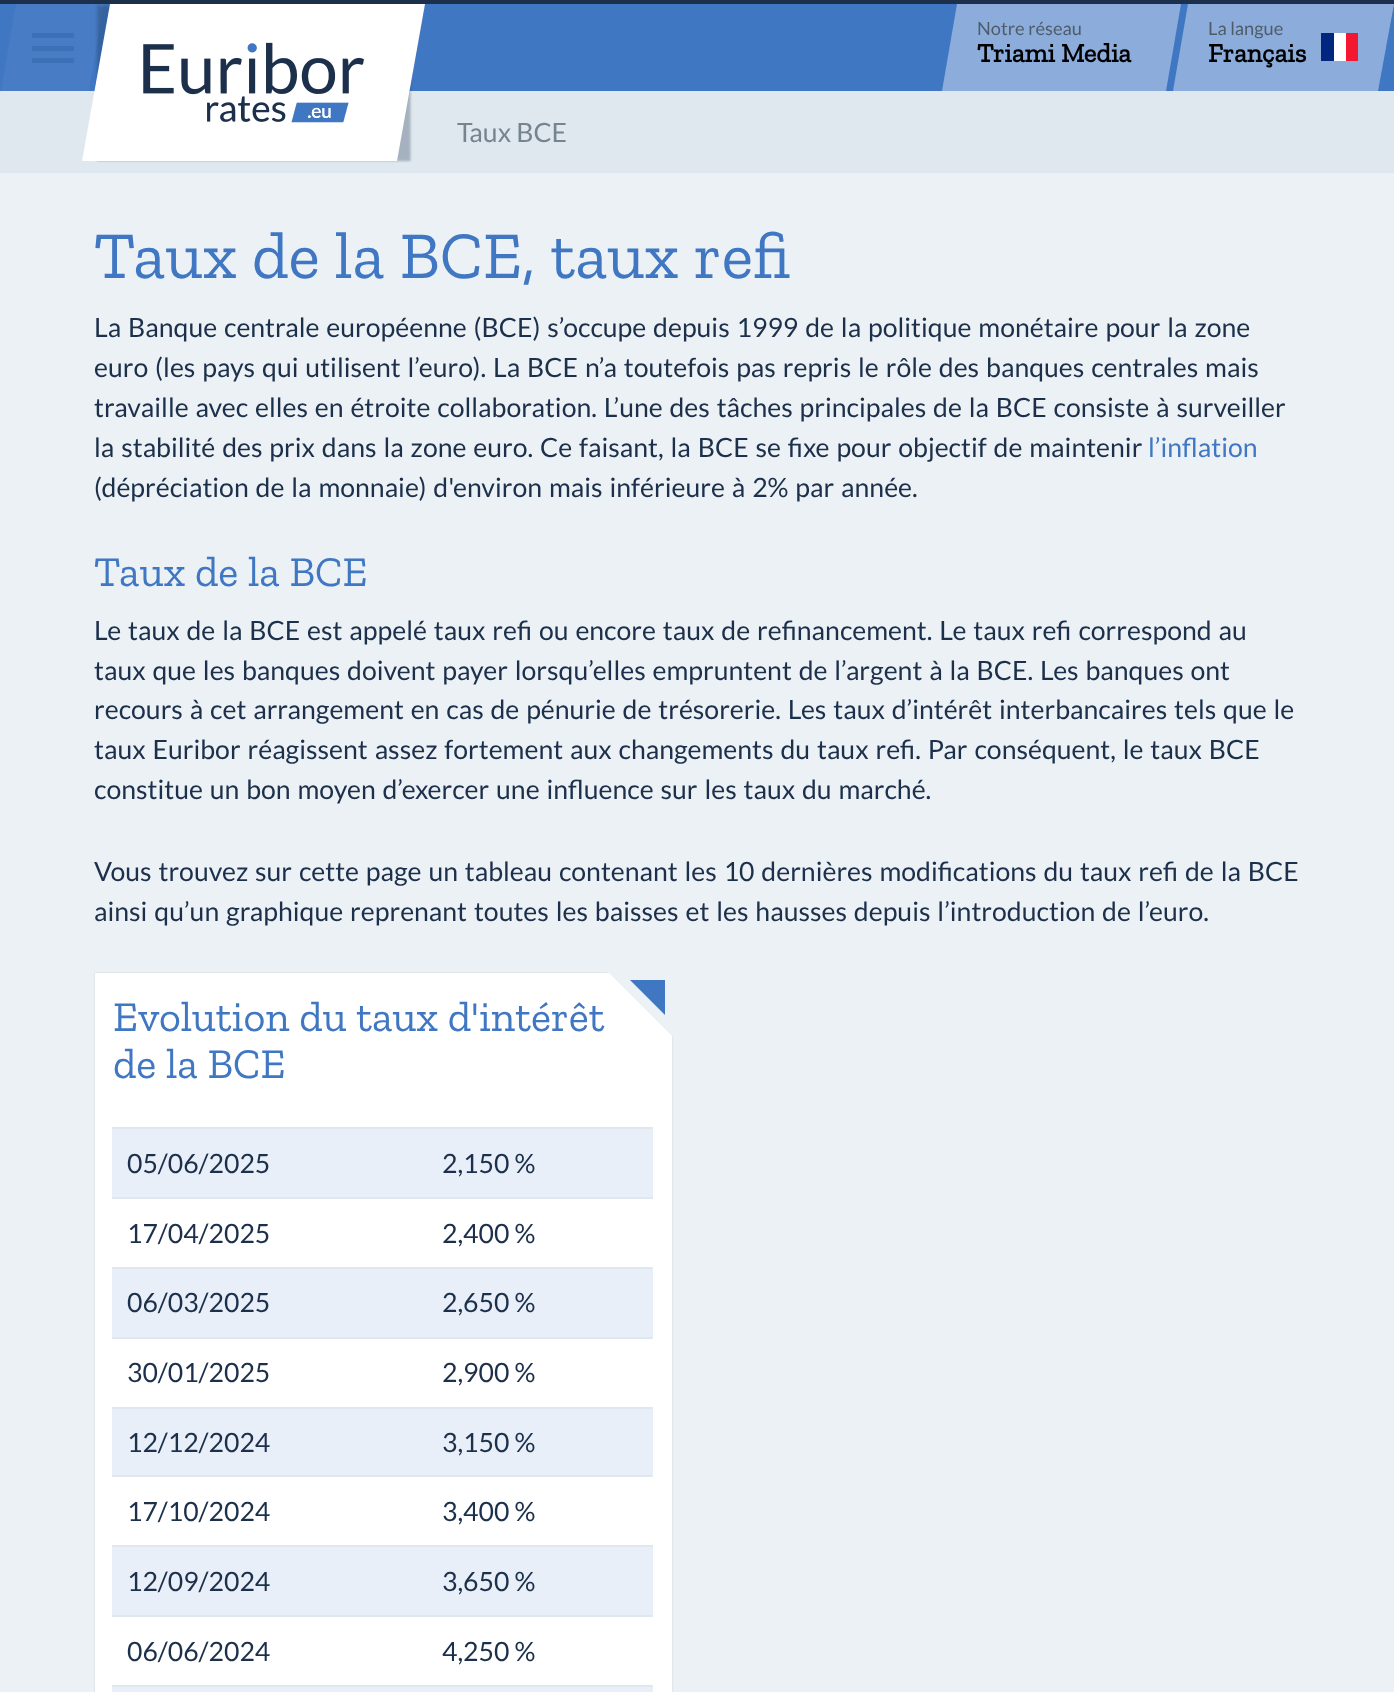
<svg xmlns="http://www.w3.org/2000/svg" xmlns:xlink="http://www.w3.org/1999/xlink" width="1394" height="1692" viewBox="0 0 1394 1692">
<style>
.cls-1{font:18.25px Lato;fill:#4e5c6a}
.cls-2{font:bold 26.6px Zilla Slab;fill:#000000}
.cls-3{font:26.6px Lato;fill:#768490}
.cls-4{font:66.5px Zilla Slab;fill:#4077c3}
.cls-5{font:26.6px Lato;fill:#1c304b}
.cls-6{font:26.6px Lato;fill:#4077c3}
.cls-7{font:42.5px Zilla Slab;fill:#4077c3}
</style>
<rect width="100%" height="100%" fill="#ecf1f5"/>
<rect fill="#4077c3" x="0" y="4" width="1394" height="87"/>
<rect fill="#1c304b" x="0" y="0" width="1394" height="4"/>
<path fill="#487cc5" d="M16 4H104L89 91H1Z"/>
<rect fill="#3c70b7" x="32" y="46" width="42" height="5"/>
<rect fill="#3c70b7" x="32" y="33" width="42" height="5"/>
<rect fill="#3c70b7" x="32" y="58" width="42" height="5"/>
<rect fill="#e0e8ef" x="0" y="91" width="1394" height="82"/>
<rect fill="#1c304b" fill-opacity="0.14" filter="blur(1px)" x="96" y="4" width="315" height="157"/>
<rect fill="#1c304b" fill-opacity="0.18" filter="blur(1px)" x="98" y="7" width="312" height="154"/>
<path fill="#ffffff" d="M110 4H425L397 161H82Z"/>
<image xlink:href="image0.png" x="143" y="42" width="221" height="81"/>
<path fill="#8caddb" d="M957 4H1181L1166 91H942Z"/>
<path fill="#8caddb" d="M1188 4H1394L1378 91H1173Z"/>
<rect fill="#ffffff" x="1334" y="33" width="12" height="28"/>
<rect fill="#00267f" x="1321" y="33" width="13" height="28"/>
<rect fill="#f31830" x="1346" y="33" width="12" height="28"/>
<rect fill="#1c304b" fill-opacity="0.14" filter="blur(1px)" x="95" y="973" width="577" height="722"/>
<rect fill="#ffffff" x="95" y="973" width="577" height="719"/>
<path fill="#ecf1f5" d="M606 970H676V1040Z"/>
<path fill="#4077c3" d="M630 980H665V1015Z"/>
<rect fill="#e8eff8" x="112" y="1129" width="541" height="68"/>
<rect fill="#e0e8ef" x="112" y="1127" width="541" height="2"/>
<rect fill="#e0e8ef" x="112" y="1197" width="541" height="2"/>
<rect fill="#e8eff8" x="112" y="1269" width="541" height="68"/>
<rect fill="#e0e8ef" x="112" y="1267" width="541" height="2"/>
<rect fill="#e0e8ef" x="112" y="1337" width="541" height="2"/>
<rect fill="#e8eff8" x="112" y="1409" width="541" height="66"/>
<rect fill="#e0e8ef" x="112" y="1407" width="541" height="2"/>
<rect fill="#e0e8ef" x="112" y="1475" width="541" height="2"/>
<rect fill="#e8eff8" x="112" y="1547" width="541" height="68"/>
<rect fill="#e0e8ef" x="112" y="1545" width="541" height="2"/>
<rect fill="#e0e8ef" x="112" y="1615" width="541" height="2"/>
<rect fill="#e8eff8" x="112" y="1687" width="541" height="5"/>
<rect fill="#e0e8ef" x="112" y="1685" width="541" height="2"/>
<text class="cls-1" x="977" y="35">Notre réseau</text>
<text class="cls-2" x="977" y="62">Triami Media</text>
<text class="cls-1" x="1208" y="35">La langue</text>
<text class="cls-2" x="1208" y="62">Français</text>
<text class="cls-3" x="457" y="142">Taux BCE</text>
<text class="cls-4" x="94" y="278">Taux de la BCE, taux refi</text>
<text class="cls-5"><tspan x="94" y="337" word-spacing="1.75">La Banque centrale européenne (BCE) s’occupe depuis 1999 de la politique monétaire pour la zone</tspan><tspan x="94" y="377" word-spacing="1.75">euro (les pays qui utilisent l’euro). La BCE n’a toutefois pas repris le rôle des banques centrales mais</tspan><tspan x="94" y="417" word-spacing="1.7">travaille avec elles en étroite collaboration. L’une des tâches principales de la BCE consiste à surveiller</tspan><tspan x="94" y="457" word-spacing="1.75">la stabilité des prix dans la zone euro. Ce faisant, la BCE se fixe pour objectif de maintenir</tspan></text>
<text class="cls-6" x="1148" y="457">l’inflation</text>
<text class="cls-5" x="94" y="497" word-spacing="1.75">(dépréciation de la monnaie) d'environ mais inférieure à 2% par année.</text>
<text class="cls-7" x="94" y="586">Taux de la BCE</text>
<text class="cls-5"><tspan x="94" y="640" word-spacing="1.75">Le taux de la BCE est appelé taux refi ou encore taux de refinancement. Le taux refi correspond au</tspan><tspan x="94" y="680" word-spacing="1.7">taux que les banques doivent payer lorsqu’elles empruntent de l’argent à la BCE. Les banques ont</tspan><tspan x="94" y="719" word-spacing="1.7">recours à cet arrangement en cas de pénurie de trésorerie. Les taux d’intérêt interbancaires tels que le</tspan><tspan x="94" y="759" word-spacing="1.75">taux Euribor réagissent assez fortement aux changements du taux refi. Par conséquent, le taux BCE</tspan><tspan x="94" y="799" word-spacing="1.7">constitue un bon moyen d’exercer une influence sur les taux du marché.</tspan></text>
<text class="cls-5"><tspan x="94" y="881" word-spacing="1.7">Vous trouvez sur cette page un tableau contenant les 10 dernières modifications du taux refi de la BCE</tspan><tspan x="94" y="921" word-spacing="1.75">ainsi qu’un graphique reprenant toutes les baisses et les hausses depuis l’introduction de l’euro.</tspan></text>
<text class="cls-7"><tspan x="113" y="1031">Evolution du taux d'intérêt</tspan><tspan x="113" y="1078">de la BCE</tspan></text>
<text class="cls-5" x="127" y="1173">05/06/2025</text>
<text class="cls-5" x="442" y="1173">2,150 %</text>
<text class="cls-5" x="127" y="1243">17/04/2025</text>
<text class="cls-5" x="442" y="1243">2,400 %</text>
<text class="cls-5" x="127" y="1312">06/03/2025</text>
<text class="cls-5" x="442" y="1312">2,650 %</text>
<text class="cls-5" x="127" y="1382">30/01/2025</text>
<text class="cls-5" x="442" y="1382">2,900 %</text>
<text class="cls-5" x="127" y="1452">12/12/2024</text>
<text class="cls-5" x="442" y="1452">3,150 %</text>
<text class="cls-5" x="127" y="1521">17/10/2024</text>
<text class="cls-5" x="442" y="1521">3,400 %</text>
<text class="cls-5" x="127" y="1591">12/09/2024</text>
<text class="cls-5" x="442" y="1591">3,650 %</text>
<text class="cls-5" x="127" y="1661">06/06/2024</text>
<text class="cls-5" x="442" y="1661">4,250 %</text>
</svg>
